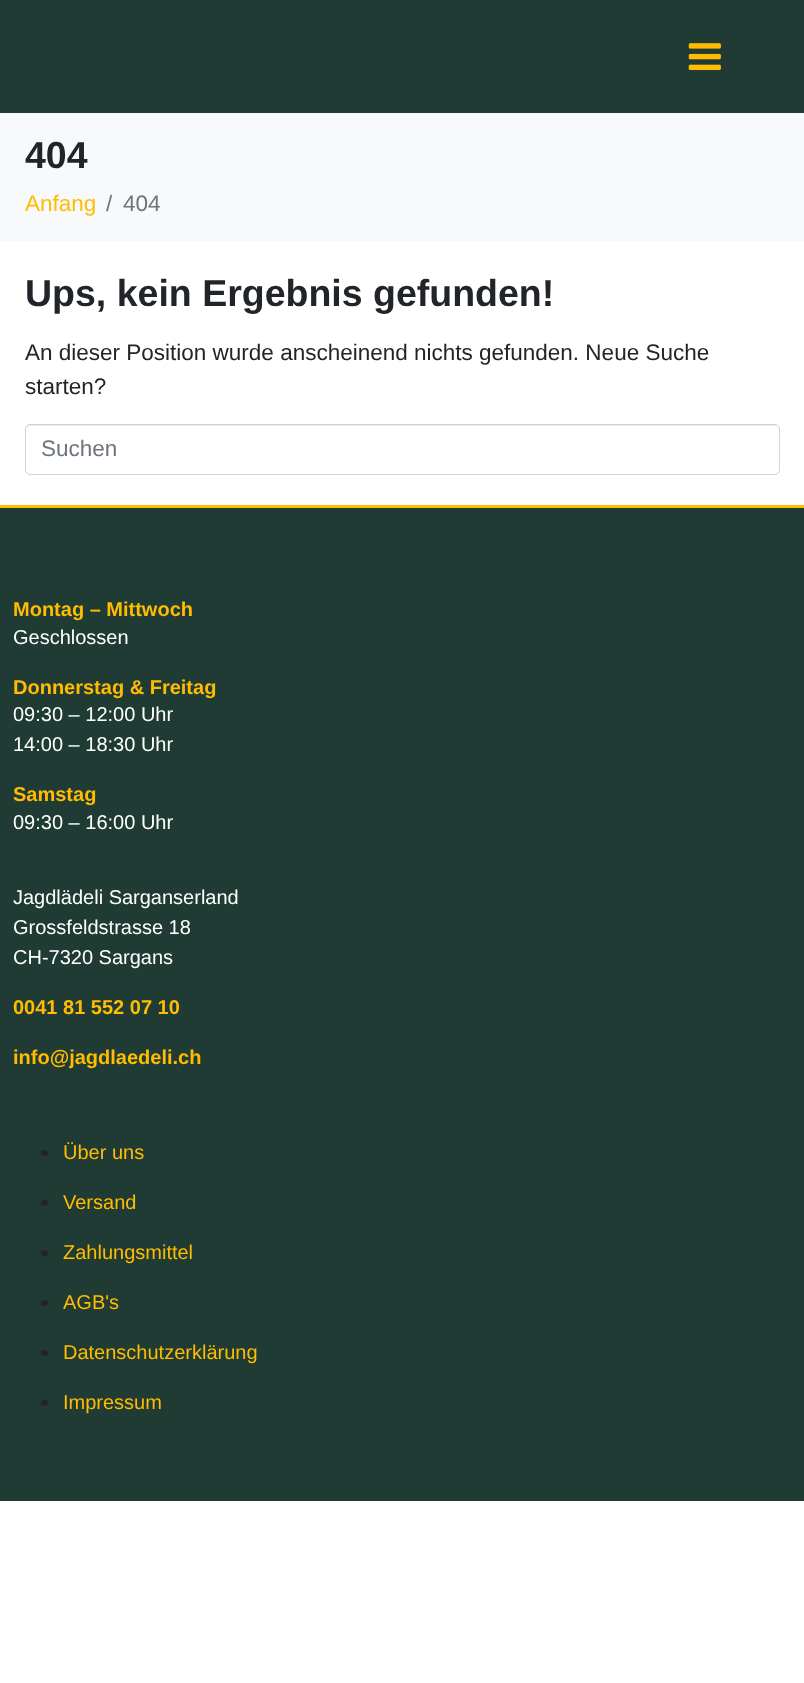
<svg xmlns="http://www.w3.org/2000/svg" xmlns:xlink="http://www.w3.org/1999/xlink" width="804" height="1683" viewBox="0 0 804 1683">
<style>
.cls-1{font:bold 37.5px Liberation Sans;fill:#212529}
.cls-2{font:22.5px Liberation Sans;fill:#ffbc00}
.cls-3{font:22.5px Liberation Sans;fill:#6c757d}
.cls-4{font:22.5px Liberation Sans;fill:#212529}
.cls-5{font:bold 20px Liberation Sans;fill:#ffbc00}
.cls-6{font:20px Liberation Sans;fill:#ffffff}
.cls-7{font:20px Liberation Sans;fill:#ffbc00}
</style>
<rect width="100%" height="100%" fill="#ffffff"/>
<rect fill="#1f3b34" x="0" y="0" width="804" height="113"/>
<image xlink:href="image0.png" x="688" y="43" width="33" height="27"/>
<rect fill="#f8f9fa" x="0" y="113" width="804" height="128"/>
<path fill="#ececec" d="M30 426H775C777 426 779 428 779 430V429C779 427 777 425 775 425H30C28 425 26 427 26 429V430C26 428 28 426 30 426Z"/>
<rect fill="none" stroke="#ced4da" x="25.5" y="424.5" width="754" height="50" rx="4.5"/>
<rect fill="#1f3b34" x="0" y="508" width="804" height="993"/>
<rect fill="#ffbc00" x="0" y="505" width="804" height="3"/>
<rect fill="#212529" x="41" y="1150" width="7" height="6" rx="3"/>
<rect fill="#212529" x="41" y="1200" width="7" height="6" rx="3"/>
<rect fill="#212529" x="41" y="1250" width="7" height="6" rx="3"/>
<rect fill="#212529" x="41" y="1300" width="7" height="6" rx="3"/>
<rect fill="#212529" x="41" y="1350" width="7" height="6" rx="3"/>
<rect fill="#212529" x="41" y="1400" width="7" height="6" rx="3"/>
<text class="cls-1" x="25" y="168">404</text>
<text class="cls-2" x="25" y="211">Anfang</text>
<text class="cls-3" x="106" y="211">/</text>
<text class="cls-3" x="123" y="211">404</text>
<text class="cls-1" x="25" y="306">Ups, kein Ergebnis gefunden!</text>
<text class="cls-4"><tspan x="25" y="360">An dieser Position wurde anscheinend nichts gefunden. Neue Suche</tspan><tspan x="25" y="394">starten?</tspan></text>
<text class="cls-3" x="41" y="456">Suchen</text>
<text class="cls-5" x="13" y="616">Montag – Mittwoch</text>
<text class="cls-6" x="13" y="644">Geschlossen</text>
<text class="cls-5" x="13" y="694">Donnerstag &amp; Freitag</text>
<text class="cls-6"><tspan x="13" y="721">09:30 – 12:00 Uhr</tspan><tspan x="13" y="751">14:00 – 18:30 Uhr</tspan></text>
<text class="cls-5" x="13" y="801">Samstag</text>
<text class="cls-6" x="13" y="829">09:30 – 16:00 Uhr</text>
<text class="cls-6"><tspan x="13" y="904">Jagdlädeli Sarganserland</tspan><tspan x="13" y="934">Grossfeldstrasse 18</tspan><tspan x="13" y="964">CH-7320 Sargans</tspan></text>
<text class="cls-5" x="13" y="1014">0041 81 552 07 10</text>
<text class="cls-5" x="13" y="1064">info@jagdlaedeli.ch</text>
<text class="cls-7" x="63" y="1159">Über uns</text>
<text class="cls-7" x="63" y="1209">Versand</text>
<text class="cls-7" x="63" y="1259">Zahlungsmittel</text>
<text class="cls-7" x="63" y="1309">AGB's</text>
<text class="cls-7" x="63" y="1359">Datenschutzerklärung</text>
<text class="cls-7" x="63" y="1409">Impressum</text>
</svg>
